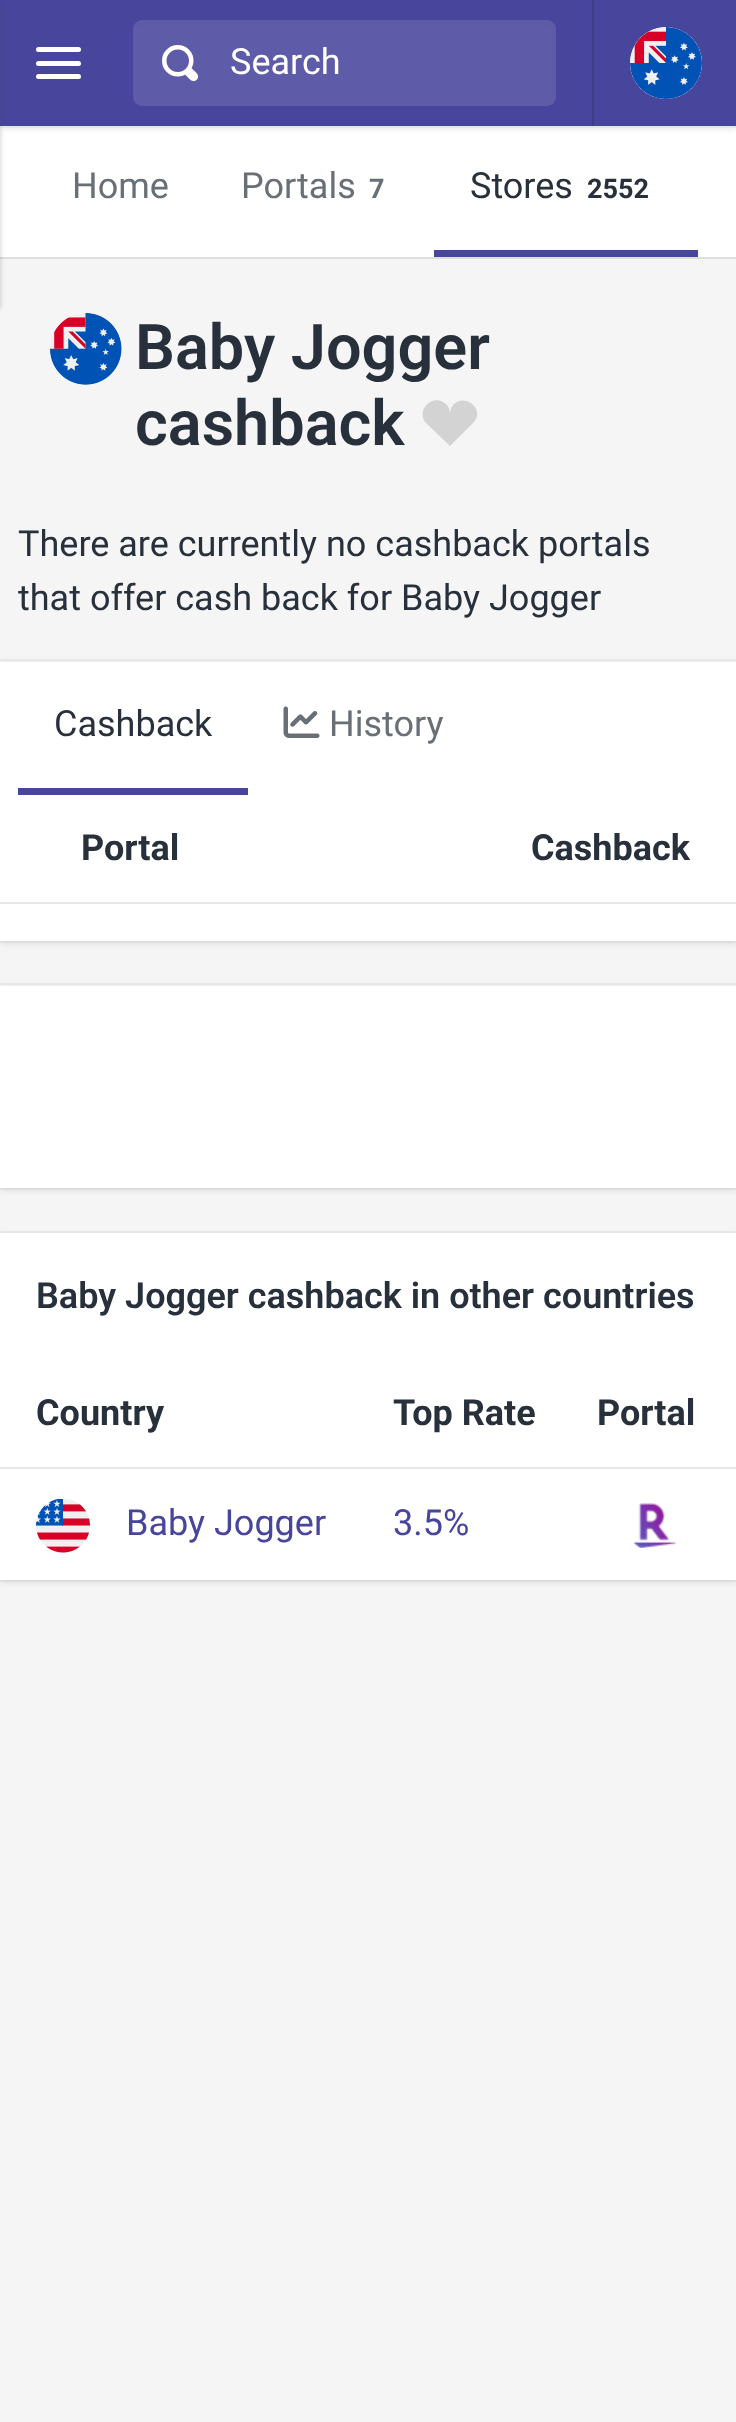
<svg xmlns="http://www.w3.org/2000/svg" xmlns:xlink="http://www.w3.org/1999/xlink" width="736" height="2422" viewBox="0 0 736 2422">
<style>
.cls-1{font:36px Roboto;fill:#ffffff}
.cls-2{font:36px Roboto;fill:#686f76}
.cls-3{font:bold 27px Roboto;fill:#686f76}
.cls-4{font:36px Roboto;fill:#28313b}
.cls-5{font:bold 27px Roboto;fill:#28313b}
.cls-6{font:600 63px Roboto;fill:#28313b}
.cls-7{font:bold 36px Roboto;fill:#28313b}
.cls-8{font:600 36px Roboto;fill:#28313b}
.cls-9{font:36px Roboto;fill:#48459d}
</style>
<rect width="100%" height="100%" fill="#f5f5f5"/>
<rect fill="#ffffff" x="0" y="126" width="736" height="131"/>
<rect fill="#3d464f" fill-opacity="0.15" filter="blur(3.5px)" x="0" y="2" width="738" height="126"/>
<rect fill="none" stroke="#3d464f" stroke-opacity="0.05" stroke-width="2" x="-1" y="-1" width="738" height="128"/>
<rect fill="#48459d" x="0" y="0" width="736" height="126"/>
<rect fill="#dedfe0" x="0" y="257" width="736" height="2"/>
<rect fill="#3d464f" fill-opacity="0.15" filter="blur(3.5px)" x="-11" y="2" width="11" height="306"/>
<rect fill="none" stroke="#3d464f" stroke-opacity="0.05" stroke-width="2" x="-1" y="-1" width="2" height="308"/>
<rect fill="#ffffff" x="36" y="61" width="45" height="5" rx="2.5"/>
<rect fill="#ffffff" x="36" y="47" width="45" height="5" rx="2.5"/>
<rect fill="#ffffff" x="36" y="74" width="45" height="5" rx="2.5"/>
<rect fill="#5e5ba9" x="133" y="20" width="423" height="86" rx="9"/>
<path fill="#5c5aa5" d="M142 25H547C550 25 554 28 554 32C554 28 552 23 547 23H142C137 23 135 28 135 32C135 28 138 25 142 25Z"/>
<image xlink:href="image0.png" x="162" y="45" width="37" height="37"/>
<rect fill="#3f3d8a" x="592" y="0" width="2" height="126"/>
<circle fill="#ffffff" cx="666" cy="63" r="36"/>
<image xlink:href="image1.png" x="630" y="27" width="72" height="72"/>
<rect fill="#48459d" x="434" y="250" width="264" height="7"/>
<circle fill="#ffffff" cx="86" cy="349" r="36"/>
<image xlink:href="image2.png" x="50" y="313" width="72" height="72"/>
<path fill="#d3d3d3" d="M427 424C414 411 433 392 446 404C449 407 450 410 450 414C450 410 451 407 454 404C466 393 485 410 474 422L450 446Z"/>
<rect fill="#3d464f" fill-opacity="0.15" filter="blur(3.5px)" x="0" y="664" width="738" height="279"/>
<rect fill="none" stroke="#3d464f" stroke-opacity="0.05" stroke-width="2" x="-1" y="660" width="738" height="282"/>
<rect fill="#ffffff" x="0" y="662" width="736" height="279"/>
<rect fill="#48459d" x="18" y="788" width="230" height="7"/>
<image xlink:href="image3.png" x="283" y="706" width="37" height="32"/>
<rect fill="#e8e8e9" x="0" y="902" width="736" height="2"/>
<rect fill="#3d464f" fill-opacity="0.15" filter="blur(3.5px)" x="0" y="988" width="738" height="202"/>
<rect fill="none" stroke="#3d464f" stroke-opacity="0.05" stroke-width="2" x="-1" y="984" width="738" height="205"/>
<rect fill="#ffffff" x="0" y="986" width="736" height="202"/>
<rect fill="#3d464f" fill-opacity="0.15" filter="blur(3.5px)" x="0" y="1235" width="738" height="347"/>
<rect fill="none" stroke="#3d464f" stroke-opacity="0.05" stroke-width="2" x="-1" y="1232" width="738" height="349"/>
<rect fill="#ffffff" x="0" y="1233" width="736" height="347"/>
<rect fill="#e8e8e9" x="0" y="1467" width="736" height="2"/>
<image xlink:href="image4.png" x="633" y="1503" width="43" height="45"/>
<image xlink:href="image5.png" x="36" y="1499" width="54" height="54"/>
<text class="cls-1" x="230" y="74">Search</text>
<text class="cls-2" x="72" y="198">Home</text>
<text class="cls-2" x="241" y="198">Portals</text>
<text class="cls-3" x="369" y="198">7</text>
<text class="cls-4" x="470" y="198">Stores</text>
<text class="cls-5" x="587" y="198">2552</text>
<text class="cls-6"><tspan x="135" y="369">Baby Jogger</tspan><tspan x="135" y="445">cashback</tspan></text>
<text class="cls-4"><tspan x="18" y="556">There are currently no cashback portals</tspan><tspan x="18" y="610">that offer cash back for Baby Jogger</tspan></text>
<text class="cls-4" x="54" y="736">Cashback</text>
<text class="cls-2" x="329" y="736">History</text>
<text class="cls-7" x="81" y="860">Portal</text>
<text class="cls-7" x="531" y="860">Cashback</text>
<text class="cls-8" x="36" y="1308">Baby Jogger cashback in other countries</text>
<text class="cls-7" x="36" y="1425">Country</text>
<text class="cls-7" x="393" y="1425">Top Rate</text>
<text class="cls-7" x="597" y="1425">Portal</text>
<text class="cls-9" x="126" y="1535">Baby Jogger</text>
<text class="cls-9" x="393" y="1535">3.5%</text>
</svg>
